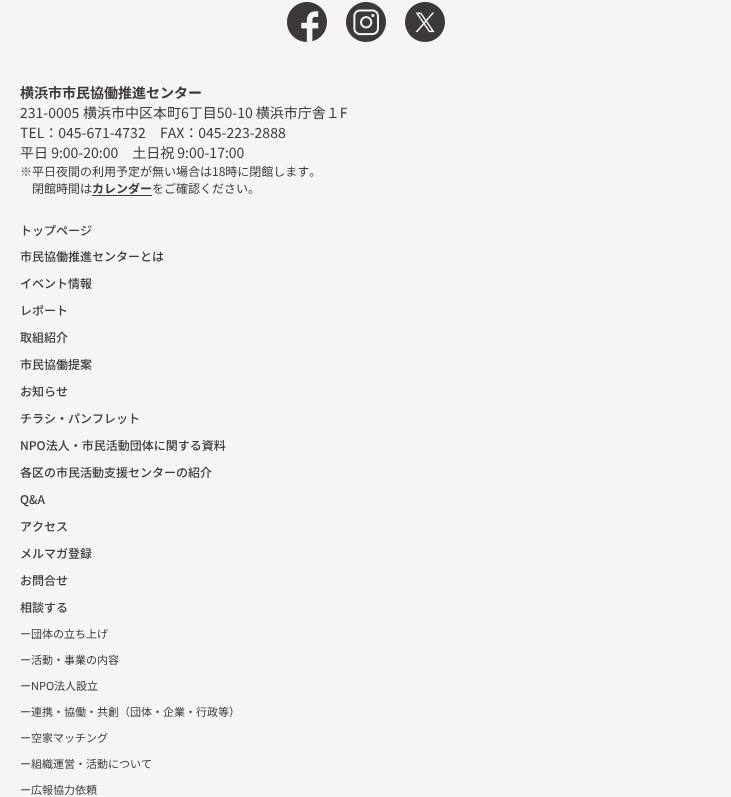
<svg xmlns="http://www.w3.org/2000/svg" xmlns:xlink="http://www.w3.org/1999/xlink" width="731" height="797" viewBox="0 0 731 797">
<style>*{font-kerning:none!important;font-variant-ligatures:none!important}</style>
<style>
.cls-1{font:bold 14px Noto Sans JP;fill:#3e3a39}
.cls-2{font:14px Noto Sans JP;fill:#3e3a39}
.cls-3{font:12px Noto Sans JP;fill:#3e3a39}
.cls-4{font:bold 12px Noto Sans JP;fill:#3e3a39}
.cls-5{font:500 12px Noto Sans JP;fill:#3e3a39}
.cls-6{font:11px Noto Sans JP;fill:#3e3a39}
</style>
<rect width="100%" height="100%" fill="#f5f5f5"/>
<image xlink:href="image0.png" x="287" y="2" width="40" height="40"/>
<image xlink:href="image1.png" x="346" y="2" width="40" height="40"/>
<image xlink:href="image2.png" x="405" y="2" width="40" height="40"/>
<rect fill="#3e3a39" x="92" y="195" width="60" height="1"/>
<text class="cls-1" x="20" y="98">横浜市市民協働推進センター</text>
<text class="cls-2" x="20" y="118">231-0005</text>
<text class="cls-2" x="83" y="118">横浜市中区本町6丁⽬50-10 横浜市庁舎１F</text>
<text class="cls-2" x="20" y="138">TEL：045-671-4732</text>
<text class="cls-2" x="160" y="138">FAX：045-223-2888</text>
<text class="cls-2" x="20" y="158">平⽇ 9:00-20:00　⼟⽇祝 9:00-17:00</text>
<text class="cls-3" x="20" y="176">※平日夜間の利用予定が無い場合は18時に閉館します。</text>
<text class="cls-3" x="32" y="193">閉館時間は</text>
<text class="cls-4" x="92" y="193">カレンダー</text>
<text class="cls-3" x="152" y="193">をご確認ください。</text>
<text class="cls-5" x="20" y="235">トップページ</text>
<text class="cls-5" x="20" y="261">市民協働推進センターとは</text>
<text class="cls-5" x="20" y="288">イベント情報</text>
<text class="cls-5" x="20" y="315">レポート</text>
<text class="cls-5" x="20" y="342">取組紹介</text>
<text class="cls-5" x="20" y="369">市⺠協働提案</text>
<text class="cls-5" x="20" y="396">お知らせ</text>
<text class="cls-5" x="20" y="423">チラシ・パンフレット</text>
<text class="cls-5" x="20" y="450">NPO法⼈・市⺠活動団体に関する資料</text>
<text class="cls-5" x="20" y="477">各区の市⺠活動⽀援センターの紹介</text>
<text class="cls-5" x="20" y="504">Q&amp;A</text>
<text class="cls-5" x="20" y="531">アクセス</text>
<text class="cls-5" x="20" y="558">メルマガ登録</text>
<text class="cls-5" x="20" y="585">お問合せ</text>
<text class="cls-5" x="20" y="612">相談する</text>
<text class="cls-6" x="20" y="638">ー</text>
<text class="cls-6" x="31" y="638">団体の立ち上げ</text>
<text class="cls-6" x="20" y="664">ー</text>
<text class="cls-6" x="31" y="664">活動・事業の内容</text>
<text class="cls-6" x="20" y="690">ー</text>
<text class="cls-6" x="31" y="690">NPO法⼈設⽴</text>
<text class="cls-6" x="20" y="716">ー</text>
<text class="cls-6" x="31" y="716">連携・協働・共創（団体・企業・⾏政等）</text>
<text class="cls-6" x="20" y="742">ー</text>
<text class="cls-6" x="31" y="742">空家マッチング</text>
<text class="cls-6" x="20" y="768">ー</text>
<text class="cls-6" x="31" y="768">組織運営・活動について</text>
<text class="cls-6" x="20" y="794">ー</text>
<text class="cls-6" x="31" y="794">広報協⼒依頼</text>
</svg>
